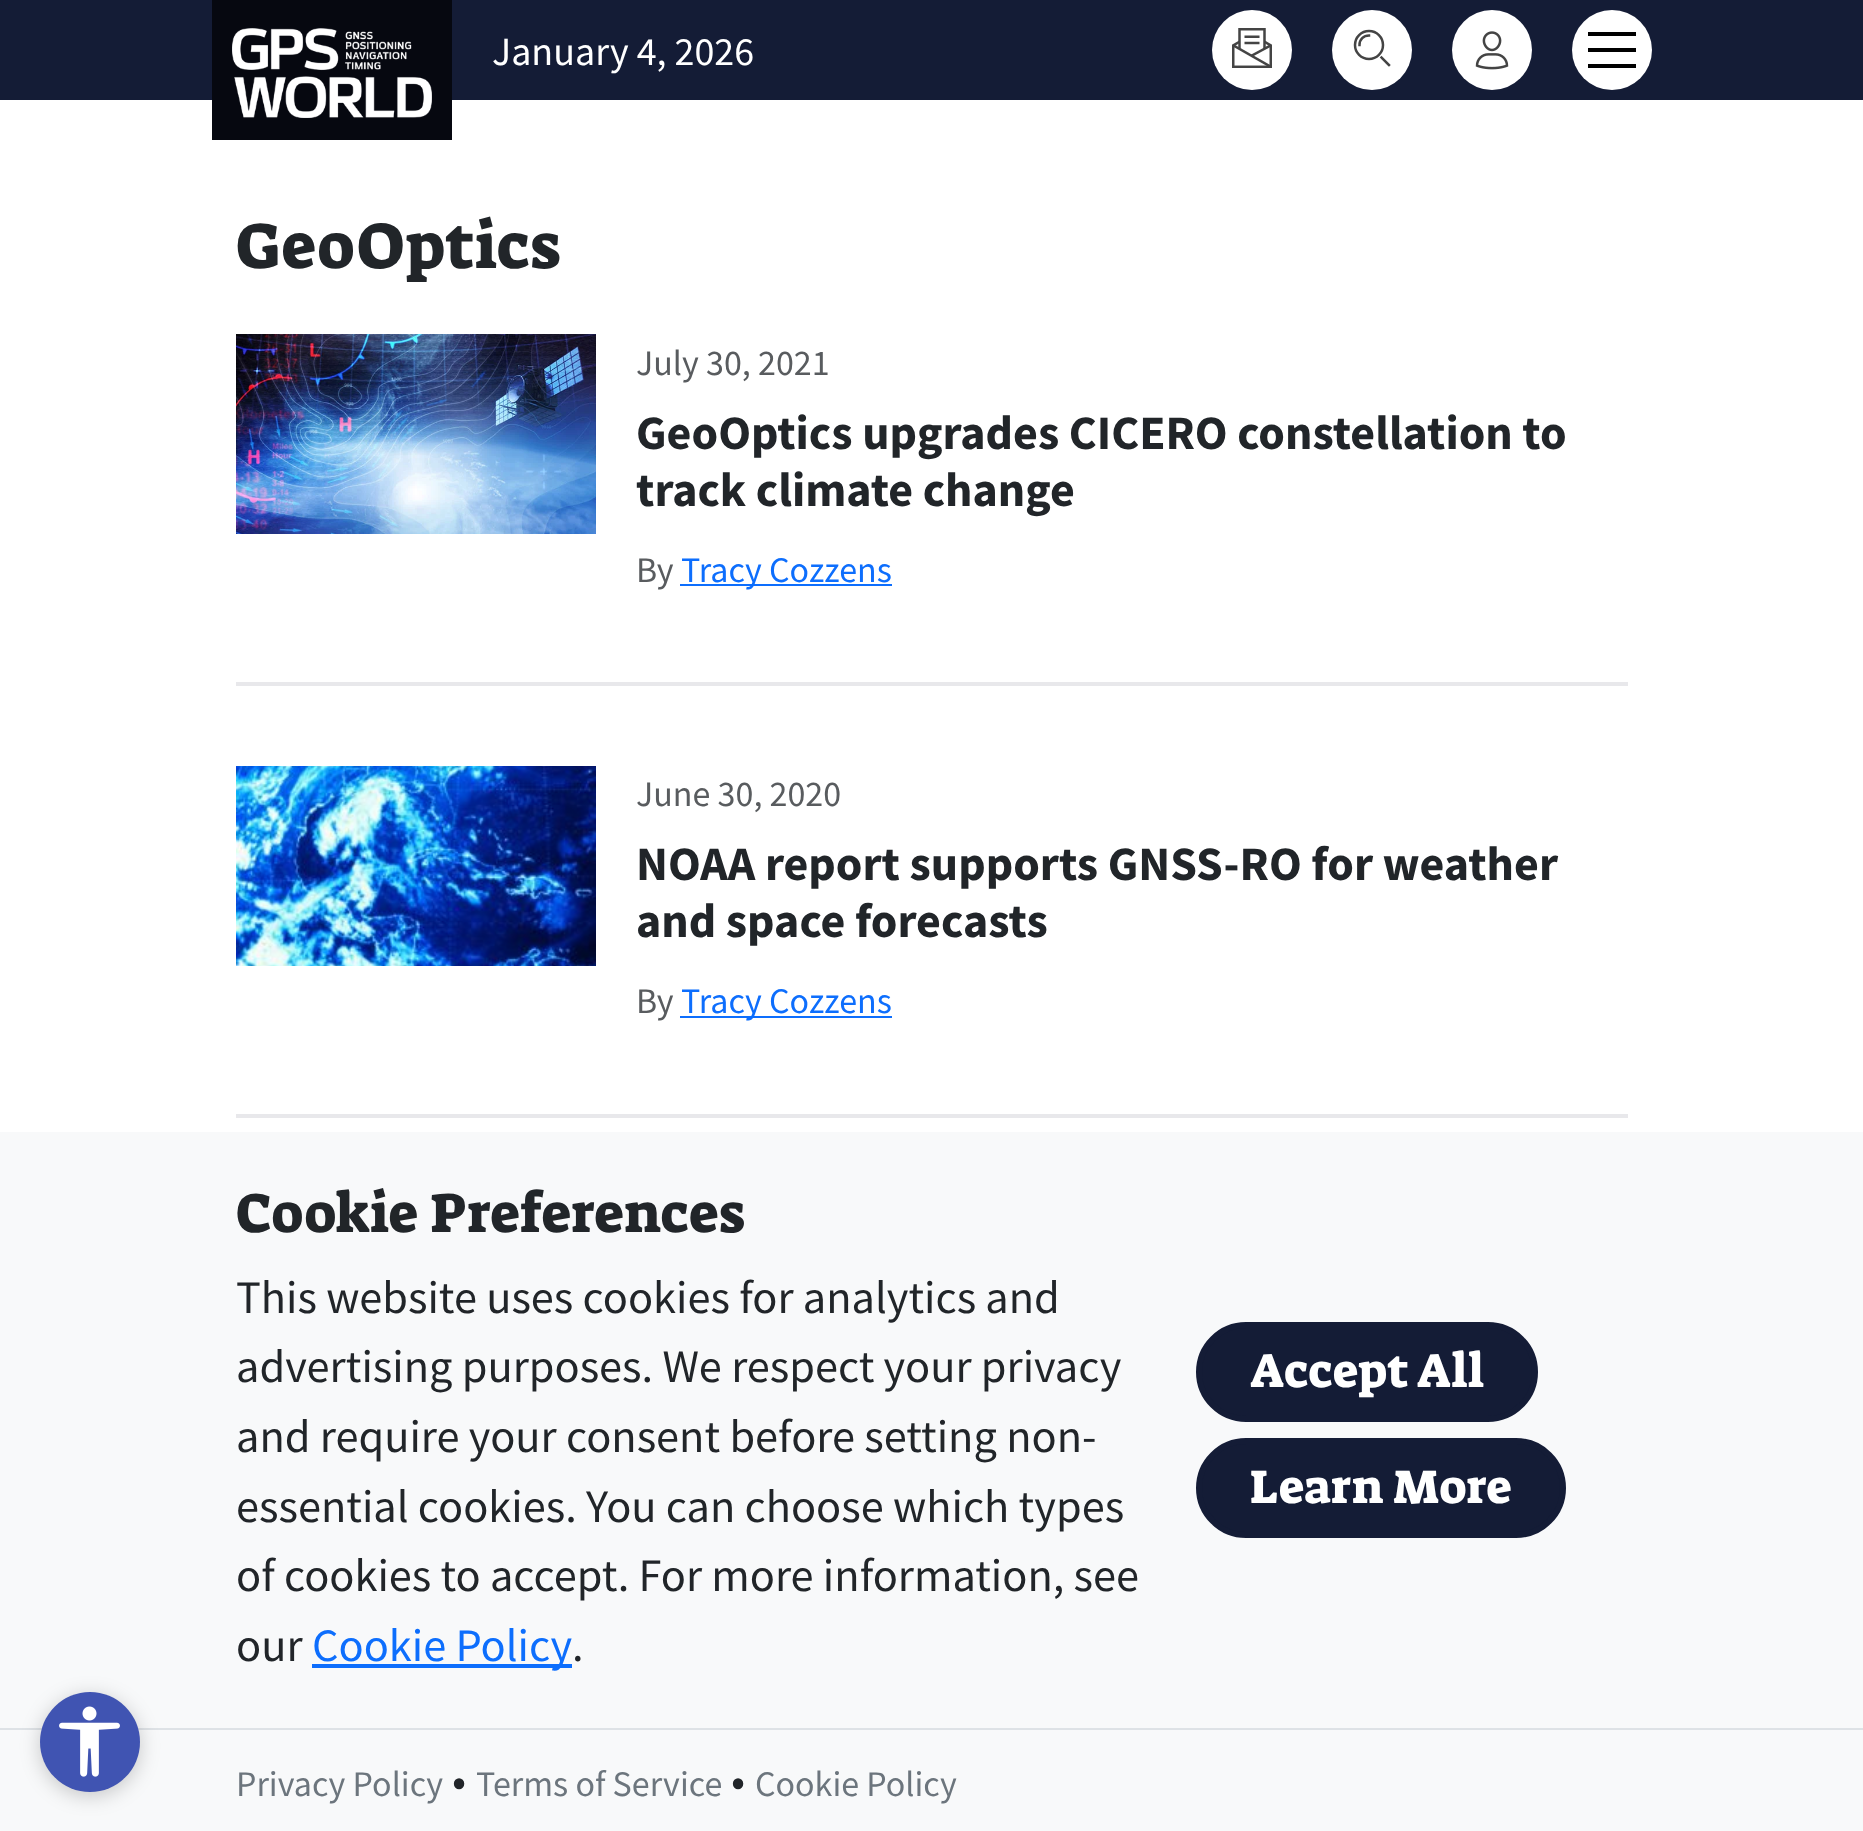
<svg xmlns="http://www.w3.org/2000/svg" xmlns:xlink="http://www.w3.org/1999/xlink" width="1863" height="1831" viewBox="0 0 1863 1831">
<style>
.cls-1{font:40px Source Sans Pro;fill:#ffffff}
.cls-2{font:65.5px Suez One;fill:#212529}
.cls-3{font:36px Source Sans Pro;fill:#595c5f}
.cls-4{font:bold 48px Source Sans Pro;fill:#212529}
.cls-5{font:36px Source Sans Pro;fill:#0d6efd}
.cls-6{font:56px Suez One;fill:#212529}
.cls-7{font:46.4px Source Sans Pro;fill:#212529}
.cls-8{font:46.4px Source Sans Pro;fill:#0d6efd}
.cls-9{font:48px Suez One;fill:#ffffff}
.cls-10{font:36px Source Sans Pro;fill:#6c757d}
</style>
<rect width="100%" height="100%" fill="#ffffff"/>
<rect fill="#141c36" x="0" y="0" width="1863" height="100"/>
<rect fill="#060810" x="212" y="0" width="240" height="140"/>
<image xlink:href="image0.png" x="232" y="28" width="200" height="90"/>
<circle fill="#ffffff" cx="1252" cy="50" r="40"/>
<image xlink:href="image1.png" x="1232" y="28" width="40" height="40"/>
<circle fill="#ffffff" cx="1372" cy="50" r="40"/>
<path fill="none" stroke="#444444" stroke-width="2.5" stroke-linecap="square" d="M1389 65L1381.5 57.5"/>
<circle fill="none" stroke="#444444" stroke-width="2.5" cx="1369" cy="45" r="14"/>
<path fill="none" stroke="#444444" stroke-width="2.5" stroke-linecap="square" d="M1359.5 45C1359.5 39.5 1363.5 35.5 1369 35.5"/>
<circle fill="#ffffff" cx="1492" cy="50" r="40"/>
<image xlink:href="image2.png" x="1475" y="31" width="34" height="39"/>
<circle fill="#ffffff" cx="1612" cy="50" r="40"/>
<rect fill="#000000" x="1588" y="32" width="48" height="4"/>
<rect fill="#000000" x="1588" y="48" width="48" height="4"/>
<rect fill="#000000" x="1588" y="64" width="48" height="4"/>
<image xlink:href="image3.png" x="236" y="334" width="360" height="200"/>
<rect fill="#0d6efd" x="680" y="584" width="212" height="2"/>
<rect fill="#e8e8eb" x="236" y="682" width="1392" height="4"/>
<image xlink:href="image4.png" x="236" y="766" width="360" height="200"/>
<rect fill="#0d6efd" x="680" y="1016" width="212" height="2"/>
<rect fill="#e8e8eb" x="236" y="1114" width="1392" height="4"/>
<rect fill="#f8f9fa" x="0" y="1132" width="1863" height="699"/>
<rect fill="#dee2e6" x="0" y="1728" width="1863" height="2"/>
<rect fill="#000000" fill-opacity="0.2" filter="blur(10px)" x="40" y="1696" width="100" height="100" rx="50"/>
<circle fill="#4054b2" cx="90" cy="1742" r="50"/>
<image xlink:href="image5.png" x="59" y="1706" width="61" height="71"/>
<rect fill="#0d6efd" x="312" y="1664" width="260" height="4"/>
<rect fill="#141c36" stroke="#141c36" stroke-width="6" x="1199" y="1325" width="336" height="94" rx="47"/>
<rect fill="#141c36" stroke="#141c36" stroke-width="6" x="1199" y="1441" width="364" height="94" rx="47"/>
<text class="cls-1" x="492" y="65">January 4, 2026</text>
<text class="cls-2" x="236" y="268">GeoOptics</text>
<text class="cls-3" x="636" y="375">July 30, 2021</text>
<text class="cls-4"><tspan x="636" y="449">GeoOptics upgrades CICERO constellation to</tspan><tspan x="636" y="506">track climate change</tspan></text>
<text class="cls-3" x="636" y="582">By</text>
<text class="cls-5" x="681" y="582">Tracy Cozzens</text>
<text class="cls-3" x="636" y="806">June 30, 2020</text>
<text class="cls-4"><tspan x="636" y="880">NOAA report supports GNSS-RO for weather</tspan><tspan x="636" y="937">and space forecasts</tspan></text>
<text class="cls-3" x="636" y="1013">By</text>
<text class="cls-5" x="681" y="1013">Tracy Cozzens</text>
<text class="cls-6" x="236" y="1232">Cookie Preferences</text>
<text class="cls-7"><tspan x="236" y="1313">This website uses cookies for analytics and</tspan><tspan x="236" y="1382">advertising purposes. We respect your privacy</tspan><tspan x="236" y="1452">and require your consent before setting non-</tspan><tspan x="236" y="1522">essential cookies. You can choose which types</tspan><tspan x="236" y="1591">of cookies to accept. For more information, see</tspan><tspan x="236" y="1661">our</tspan></text>
<text class="cls-8" x="312" y="1661">Cookie Policy</text>
<text class="cls-7" x="572" y="1661">.</text>
<text class="cls-9" x="1250" y="1387">Accept All</text>
<text class="cls-9" x="1250" y="1503">Learn More</text>
<text class="cls-10" x="236" y="1796">Privacy Policy</text>
<text class="cls-7" x="452" y="1796">•</text>
<text class="cls-10" x="476" y="1796">Terms of Service</text>
<text class="cls-7" x="731" y="1796">•</text>
<text class="cls-10" x="755" y="1796">Cookie Policy</text>
</svg>
